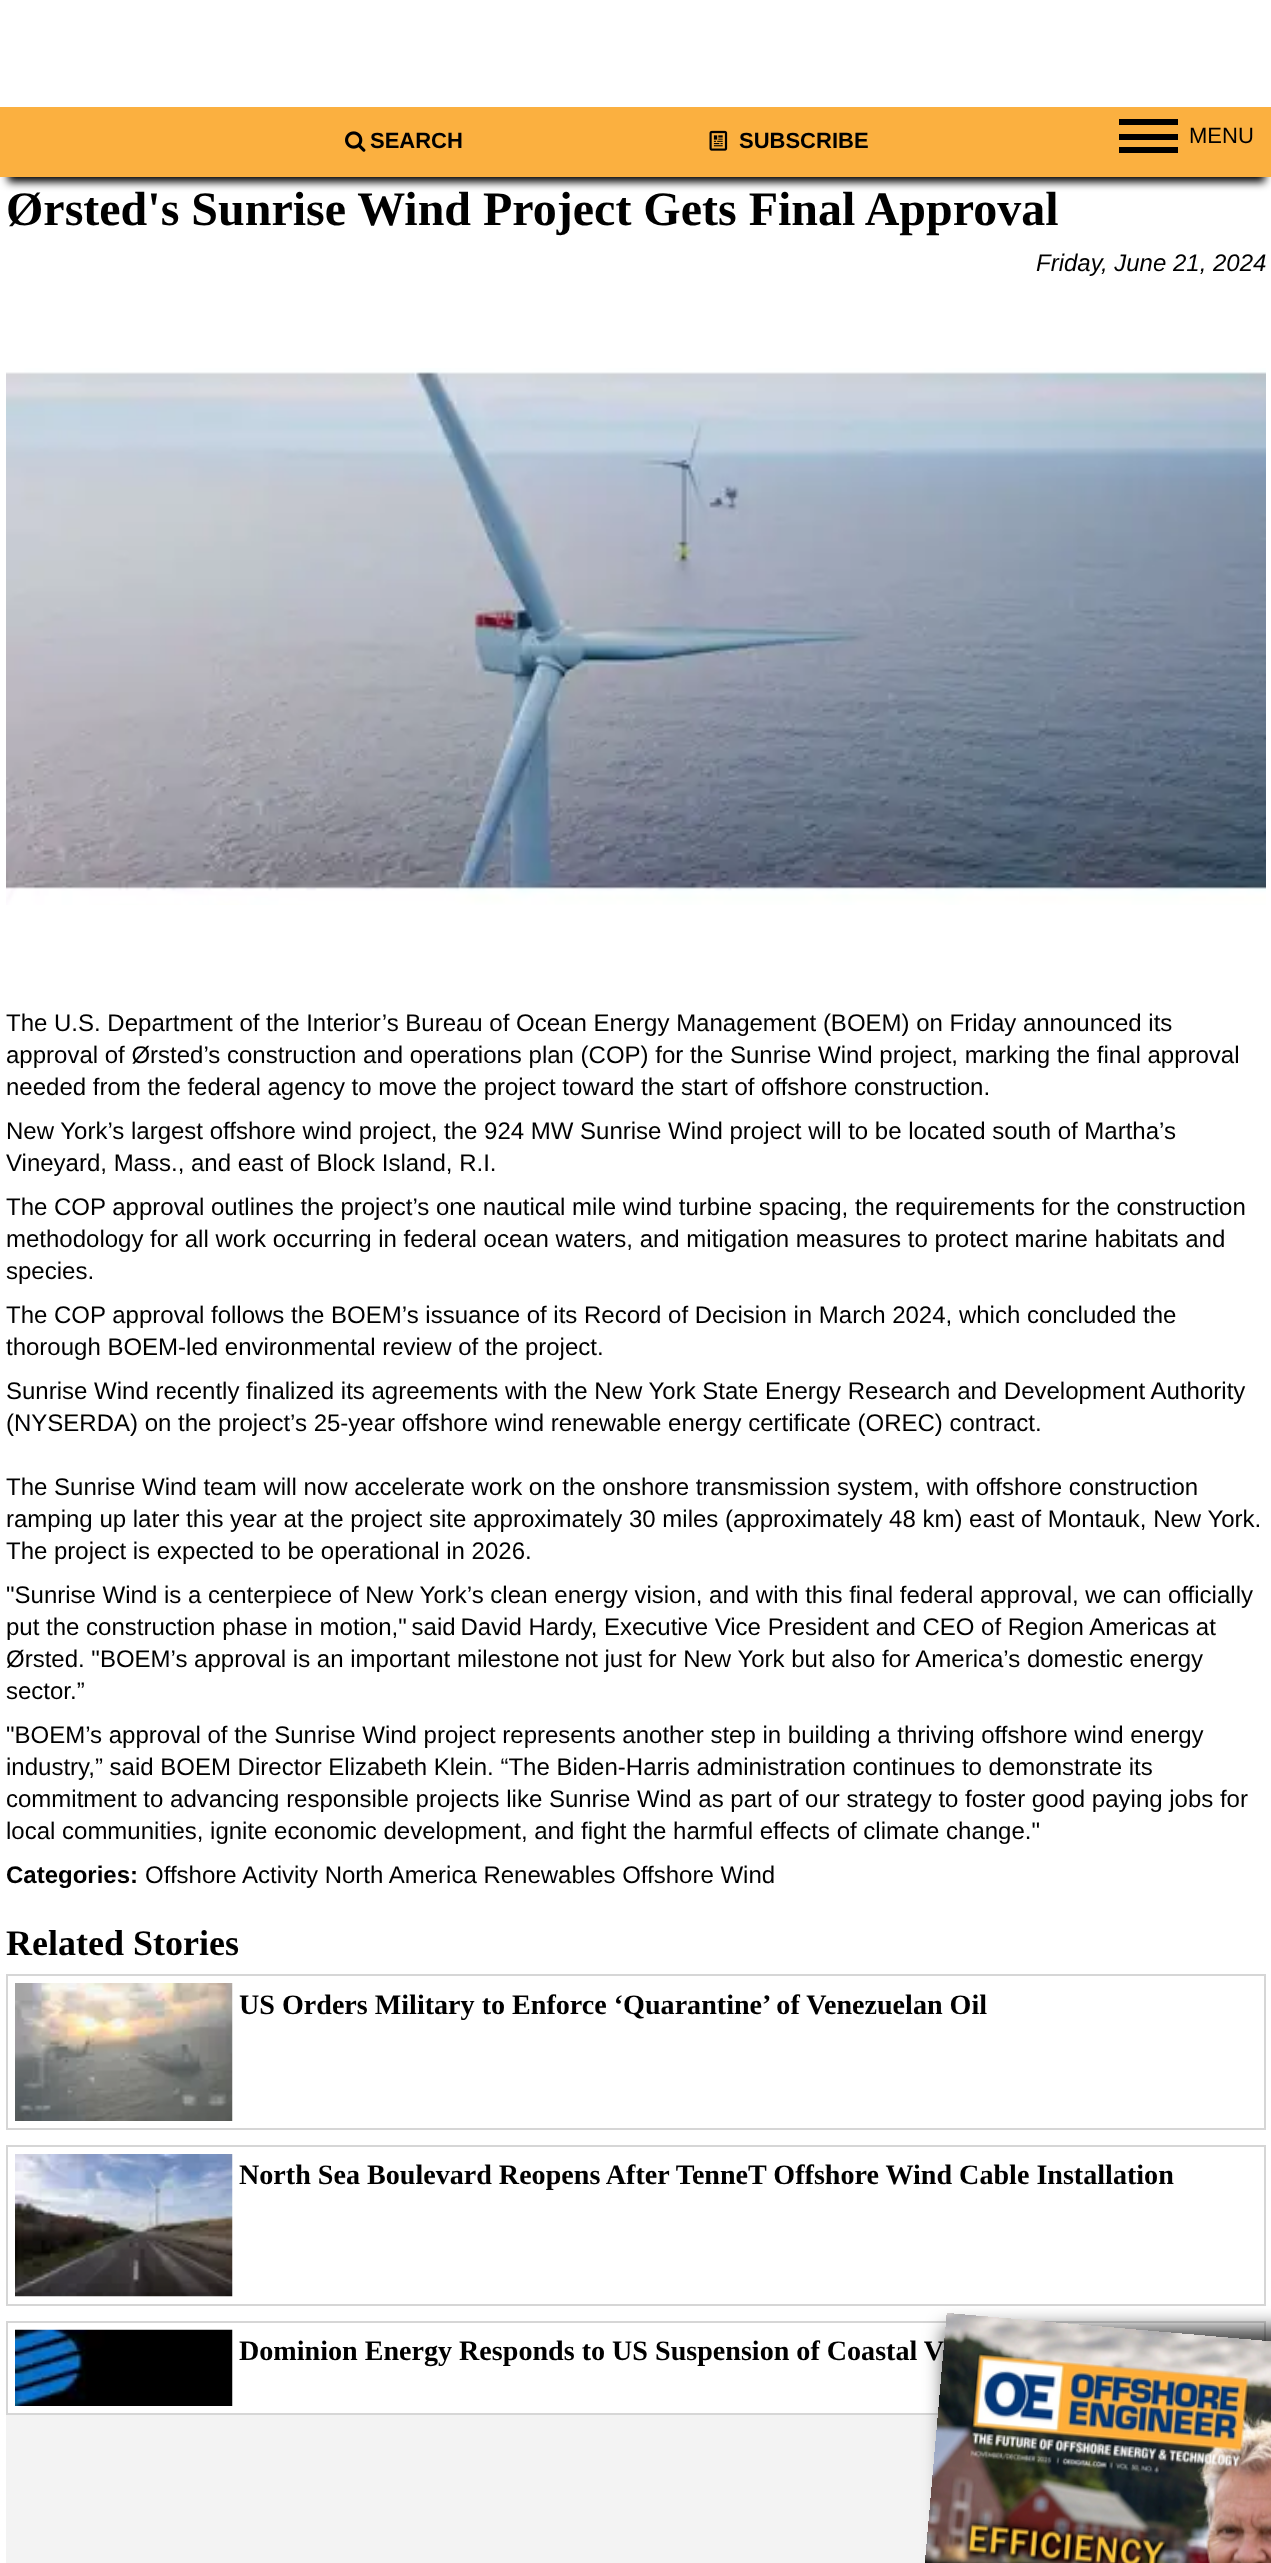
<svg xmlns="http://www.w3.org/2000/svg" xmlns:xlink="http://www.w3.org/1999/xlink" width="1271" height="2563" viewBox="0 0 1271 2563">
<style>
.cls-1{font:bold 22px Liberation Sans;fill:#000000}
.cls-2{font:22px Liberation Sans;fill:#000000}
.cls-3{font:bold 48px Liberation Serif;fill:#000000}
.cls-4{font:italic 24px Liberation Sans;fill:#000000}
.cls-5{font:24px Liberation Sans;fill:#000000}
.cls-6{font:bold 24px Liberation Sans;fill:#000000}
.cls-7{font:bold 36px Liberation Serif;fill:#000000}
.cls-8{font:bold 28.1px Liberation Serif;fill:#000000}
</style>
<rect width="100%" height="100%" fill="#ffffff"/>
<rect fill="#000000" filter="blur(4.5px)" x="8" y="126" width="1257" height="56"/>
<rect fill="#fbb040" x="0" y="107" width="1271" height="70"/>
<image xlink:href="image0.png" x="345" y="131" width="21" height="21"/>
<image xlink:href="image1.png" x="709" y="130" width="19" height="21"/>
<rect fill="#000000" x="1119" y="119" width="59" height="6"/>
<rect fill="#000000" x="1119" y="134" width="59" height="6"/>
<rect fill="#000000" x="1119" y="147" width="59" height="6"/>
<image xlink:href="image2.png" x="6" y="368" width="1260" height="537"/>
<rect fill="none" stroke="#d6d6d6" stroke-width="2" x="7" y="1975" width="1258" height="154"/>
<image xlink:href="image3.png" x="15" y="1983" width="218" height="138"/>
<rect fill="none" stroke="#d6d6d6" stroke-width="2" x="7" y="2146" width="1258" height="159"/>
<image xlink:href="image4.png" x="15" y="2154" width="218" height="143"/>
<rect fill="none" stroke="#d6d6d6" stroke-width="2" x="7" y="2322" width="1258" height="92"/>
<image xlink:href="image5.png" x="15" y="2329" width="218" height="77"/>
<rect fill="#f3f3f3" x="6" y="2415" width="932" height="148"/>
<rect fill="#000000" fill-opacity="0.75" filter="blur(10px)" x="945" y="2328" width="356" height="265"/>
<text class="cls-1" x="370" y="148">SEARCH</text>
<text class="cls-1" x="739" y="148">SUBSCRIBE</text>
<text class="cls-2" x="1189" y="143">MENU</text>
<text class="cls-3" x="6" y="225">Ørsted's Sunrise Wind Project Gets Final Approval</text>
<text class="cls-4" x="1036" y="271">Friday, June 21, 2024</text>
<text class="cls-5"><tspan x="6" y="1031">The U.S. Department of the Interior’s Bureau of Ocean Energy Management (BOEM) on Friday announced its</tspan><tspan x="6" y="1063">approval of Ørsted’s construction and operations plan (COP) for the Sunrise Wind project, marking the final approval</tspan><tspan x="6" y="1095">needed from the federal agency to move the project toward the start of offshore construction.</tspan><tspan x="6" y="1139">New York’s largest offshore wind project, the 924 MW Sunrise Wind project will to be located south of Martha’s</tspan><tspan x="6" y="1171">Vineyard, Mass., and east of Block Island, R.I.</tspan><tspan x="6" y="1215">The COP approval outlines the project’s one nautical mile wind turbine spacing, the requirements for the construction</tspan><tspan x="6" y="1247">methodology for all work occurring in federal ocean waters, and mitigation measures to protect marine habitats and</tspan><tspan x="6" y="1279">species.</tspan><tspan x="6" y="1323">The COP approval follows the BOEM’s issuance of its Record of Decision in March 2024, which concluded the</tspan><tspan x="6" y="1355">thorough BOEM-led environmental review of the project.</tspan><tspan x="6" y="1399">Sunrise Wind recently finalized its agreements with the New York State Energy Research and Development Authority</tspan><tspan x="6" y="1431">(NYSERDA) on the project’s 25-year offshore wind renewable energy certificate (OREC) contract.</tspan></text>
<text class="cls-5"><tspan x="6" y="1495">The Sunrise Wind team will now accelerate work on the onshore transmission system, with offshore construction</tspan><tspan x="6" y="1527">ramping up later this year at the project site approximately 30 miles (approximately 48 km) east of Montauk, New York.</tspan><tspan x="6" y="1559">The project is expected to be operational in 2026.</tspan><tspan x="6" y="1603">"Sunrise Wind is a centerpiece of New York’s clean energy vision, and with this final federal approval, we can officially</tspan><tspan x="6" y="1635">put the construction phase in motion," said David Hardy, Executive Vice President and CEO of Region Americas at</tspan><tspan x="6" y="1667">Ørsted. "BOEM’s approval is an important milestone not just for New York but also for America’s domestic energy</tspan><tspan x="6" y="1699">sector.”</tspan><tspan x="6" y="1743">"BOEM’s approval of the Sunrise Wind project represents another step in building a thriving offshore wind energy</tspan><tspan x="6" y="1775">industry,” said BOEM Director Elizabeth Klein. “The Biden-Harris administration continues to demonstrate its</tspan><tspan x="6" y="1807">commitment to advancing responsible projects like Sunrise Wind as part of our strategy to foster good paying jobs for</tspan><tspan x="6" y="1839">local communities, ignite economic development, and fight the harmful effects of climate change."</tspan></text>
<text class="cls-6" x="6" y="1883">Categories:</text>
<text class="cls-5" x="145" y="1883">Offshore</text>
<text class="cls-5" x="242" y="1883">Activity North America Renewables Offshore Wind</text>
<text class="cls-7" x="6" y="1955">Related Stories</text>
<text class="cls-8" x="239" y="2014">US Orders Military to Enforce ‘Quarantine’ of Venezuelan Oil</text>
<text class="cls-8" x="239" y="2184">North Sea Boulevard Reopens After TenneT Offshore Wind Cable Installation</text>
<text class="cls-8" x="239" y="2360">Dominion Energy Responds to US Suspension of Coastal V</text>
<image xlink:href="image6.png" x="925" y="2313" width="346" height="250"/>
</svg>
